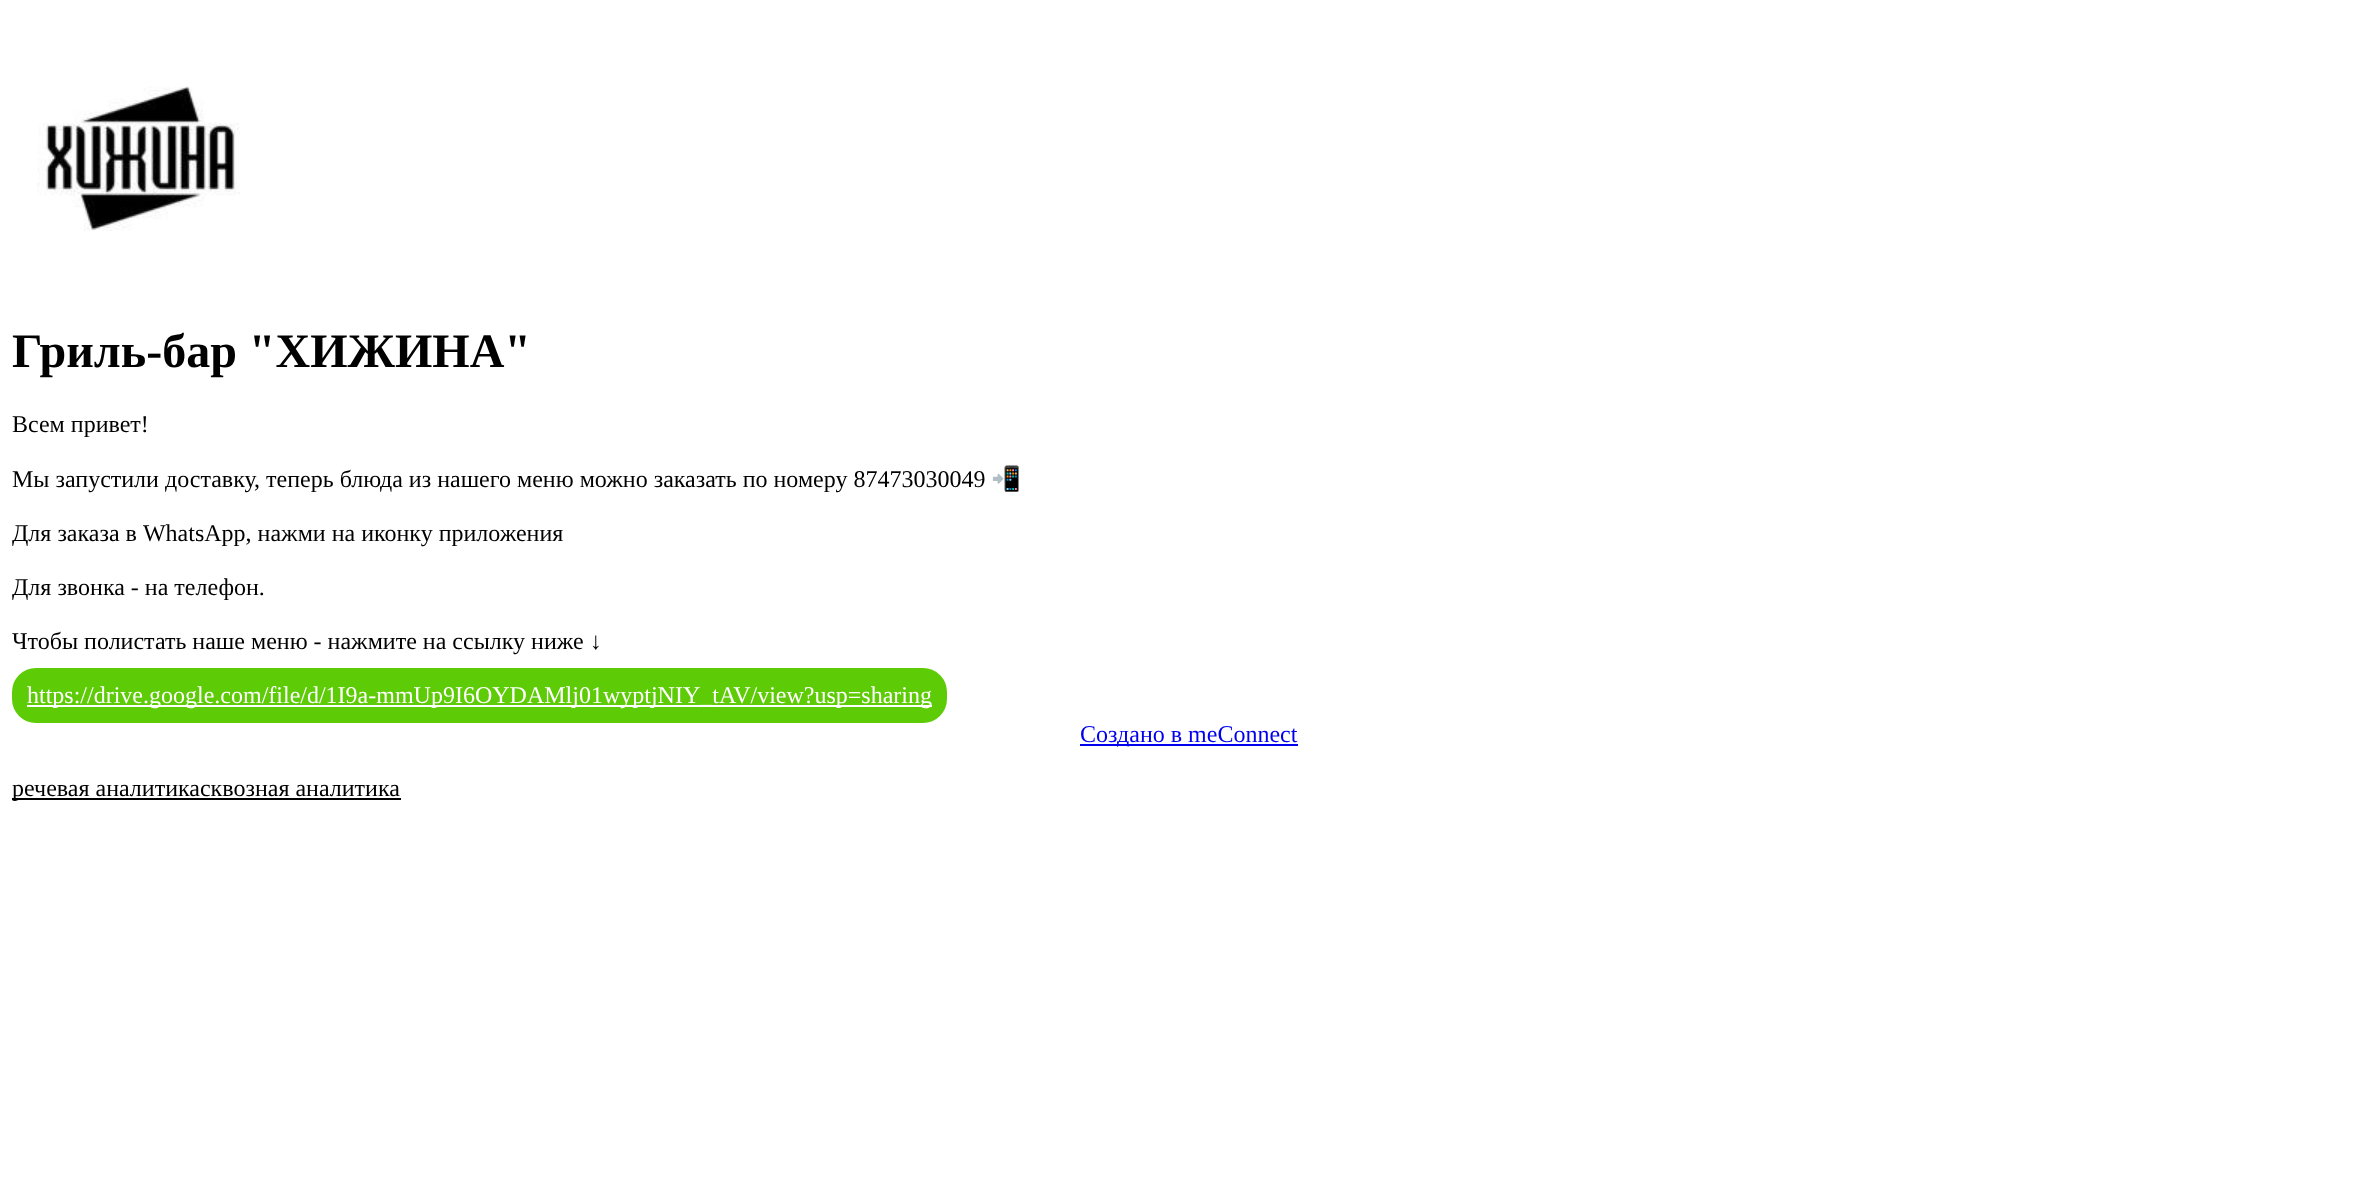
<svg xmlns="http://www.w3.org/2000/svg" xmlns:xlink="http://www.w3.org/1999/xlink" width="2377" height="1188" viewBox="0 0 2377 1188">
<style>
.cls-1{font:bold 48px Liberation Serif;fill:#000000}
.cls-2{font:24px Liberation Serif;fill:#000000}
.cls-3{font:24px Noto Color Emoji;fill:#000000}
.cls-4{font:24px Liberation Serif;fill:#ffffff}
.cls-5{font:24px Liberation Serif;fill:#0000ee}
</style>
<rect width="100%" height="100%" fill="#ffffff"/>
<image xlink:href="image0.png" x="37" y="86" width="203" height="145"/>
<rect fill="#5dcb06" x="12" y="668" width="935" height="55" rx="24"/>
<rect fill="#ffffff" x="27" y="705" width="905" height="2"/>
<rect fill="#0000ee" x="1080" y="744" width="218" height="2"/>
<rect fill="#000000" x="12" y="798" width="389" height="2"/>
<text class="cls-1" x="12" y="367">Гриль-бар "ХИЖИНА"</text>
<text class="cls-2" x="12" y="432">Всем привет!</text>
<text class="cls-2" x="12" y="487">Мы запустили доставку, теперь блюда из нашего меню можно заказать по номеру 87473030049</text>
<text class="cls-3" x="991" y="487">📲</text>
<text class="cls-2" x="12" y="541">Для заказа в WhatsApp, нажми на иконку приложения</text>
<text class="cls-2" x="12" y="595">Для звонка - на телефон.</text>
<text class="cls-2" x="12" y="649">Чтобы полистать наше меню - нажмите на ссылку ниже ↓</text>
<text class="cls-4" x="27" y="703">https://drive.google.com/file/d/1I9a-mmUp9I6OYDAMlj01wyptjNIY_tAV/view?usp=sharing</text>
<text class="cls-5" x="1080" y="742">Создано в meConnect</text>
<text class="cls-2" x="12" y="796">речевая аналитикасквозная аналитика</text>
</svg>
